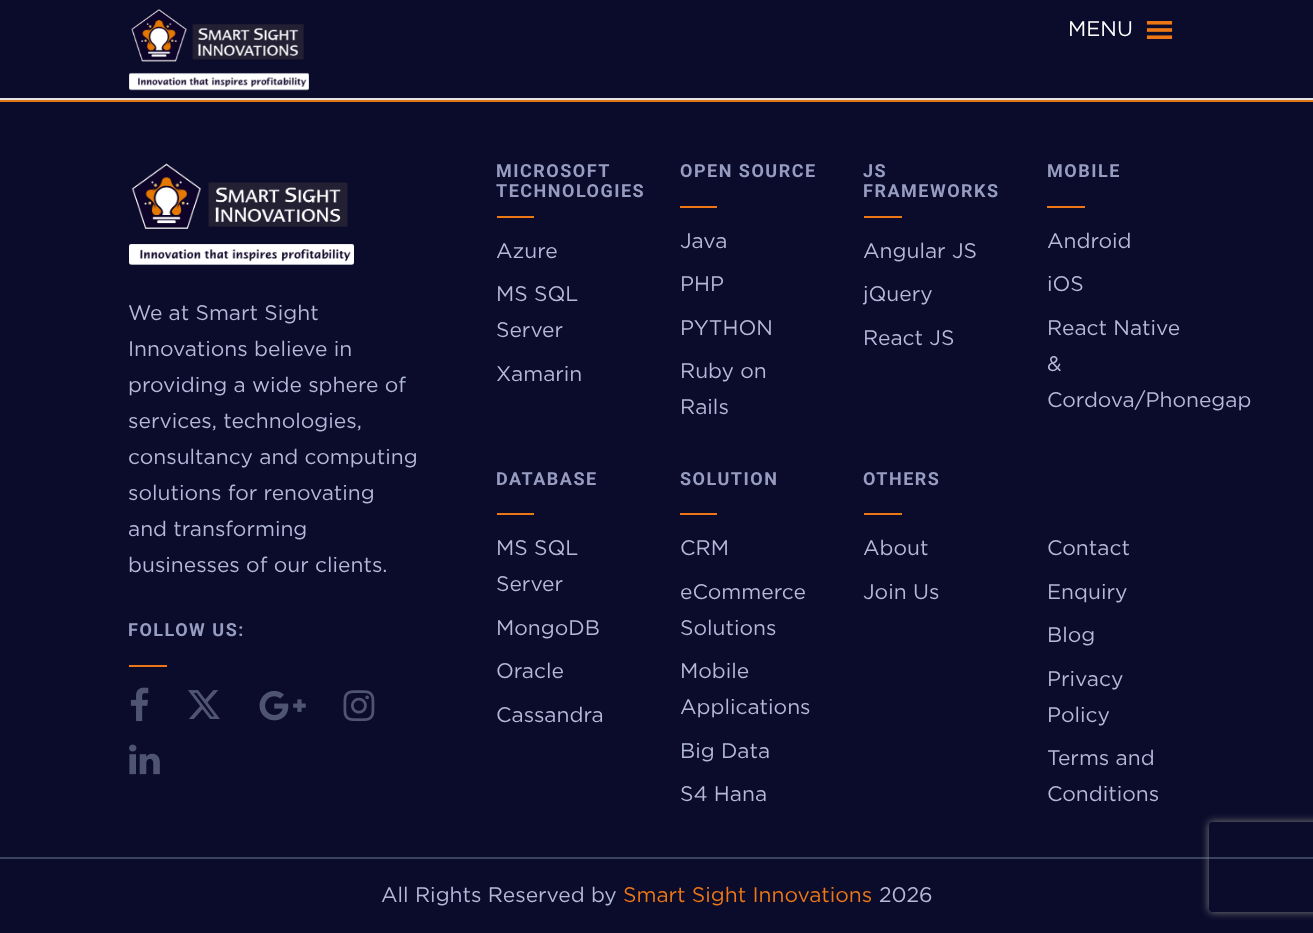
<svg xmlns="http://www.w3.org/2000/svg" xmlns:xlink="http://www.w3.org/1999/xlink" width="1313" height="933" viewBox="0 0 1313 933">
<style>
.cls-1{font:21px Gotham;fill:#ffffff}
.cls-2{font:21px Gotham;fill:#b4b9d8}
.cls-3{font:bold 18px Roboto;letter-spacing:1.5px;fill:#979dc1}
.cls-4{font:21px Gotham;fill:#ed7715}
</style>
<defs>
<clipPath id="clip1"><path d="M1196 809H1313V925H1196ZM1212 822H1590C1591.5 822 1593 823.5 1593 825V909C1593 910.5 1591.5 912 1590 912H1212C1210.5 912 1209 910.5 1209 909V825C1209 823.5 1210.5 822 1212 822Z" clip-rule="evenodd"/></clipPath>
</defs>
<rect width="100%" height="100%" fill="#e27814"/>
<rect fill="#0b0b2b" x="0" y="0" width="1313" height="98"/>
<rect fill="#e4e4e4" x="0" y="98" width="1313" height="2"/>
<image xlink:href="image0.png" x="129" y="9" width="180" height="82"/>
<image xlink:href="image1.png" x="1146" y="21" width="27" height="18"/>
<rect fill="#0b0b2b" x="0" y="102" width="1313" height="831"/>
<image xlink:href="image2.png" x="129" y="163" width="225" height="102"/>
<rect fill="#ed7715" x="129" y="665" width="38" height="2"/>
<image xlink:href="image3.png" x="130" y="687" width="19" height="35"/>
<image xlink:href="image4.png" x="188" y="690" width="32" height="29"/>
<image xlink:href="image5.png" x="259" y="691" width="47" height="30"/>
<image xlink:href="image6.png" x="343" y="690" width="32" height="32"/>
<image xlink:href="image7.png" x="129" y="744" width="31" height="31"/>
<rect fill="#ed7715" x="497" y="216" width="37" height="2"/>
<rect fill="#ed7715" x="680" y="206" width="37" height="2"/>
<rect fill="#ed7715" x="864" y="216" width="38" height="2"/>
<rect fill="#ed7715" x="1047" y="206" width="38" height="2"/>
<rect fill="#ed7715" x="497" y="513" width="37" height="2"/>
<rect fill="#ed7715" x="680" y="513" width="37" height="2"/>
<rect fill="#ed7715" x="864" y="513" width="38" height="2"/>
<rect fill="#39445f" x="0" y="857" width="1313" height="2"/>
<g clip-path="url(#clip1)">
<rect fill="#808080" filter="blur(4px)" x="1209" y="822" width="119" height="90" rx="3"/>
</g>
<text class="cls-1" x="1068" y="36">MENU</text>
<text class="cls-2"><tspan x="128" y="320">We at Smart Sight</tspan><tspan x="128" y="356">Innovations believe in</tspan><tspan x="128" y="392">providing a wide sphere of</tspan><tspan x="128" y="428">services, technologies,</tspan><tspan x="128" y="464">consultancy and computing</tspan><tspan x="128" y="500">solutions for renovating</tspan><tspan x="128" y="536">and transforming</tspan><tspan x="128" y="572">businesses of our clients.</tspan></text>
<text class="cls-3" x="128" y="636">FOLLOW US:</text>
<text class="cls-3"><tspan x="496" y="177">MICROSOFT</tspan><tspan x="496" y="197">TECHNOLOGIES</tspan></text>
<text class="cls-2" x="496" y="258">Azure</text>
<text class="cls-2"><tspan x="496" y="301">MS SQL</tspan><tspan x="496" y="337">Server</tspan></text>
<text class="cls-2" x="496" y="381">Xamarin</text>
<text class="cls-3" x="680" y="177">OPEN SOURCE</text>
<text class="cls-2" x="680" y="248">Java</text>
<text class="cls-2" x="680" y="291">PHP</text>
<text class="cls-2" x="680" y="335">PYTHON</text>
<text class="cls-2"><tspan x="680" y="378">Ruby on</tspan><tspan x="680" y="414">Rails</tspan></text>
<text class="cls-3"><tspan x="863" y="177">JS</tspan><tspan x="863" y="197">FRAMEWORKS</tspan></text>
<text class="cls-2" x="863" y="258">Angular JS</text>
<text class="cls-2" x="863" y="301">jQuery</text>
<text class="cls-2" x="863" y="345">React JS</text>
<text class="cls-3" x="1047" y="177">MOBILE</text>
<text class="cls-2" x="1047" y="248">Android</text>
<text class="cls-2" x="1047" y="291">iOS</text>
<text class="cls-2"><tspan x="1047" y="335">React Native</tspan><tspan x="1047" y="371">&amp;</tspan><tspan x="1047" y="407">Cordova/Phonegap</tspan></text>
<text class="cls-3" x="496" y="485">DATABASE</text>
<text class="cls-2"><tspan x="496" y="555">MS SQL</tspan><tspan x="496" y="591">Server</tspan></text>
<text class="cls-2" x="496" y="635">MongoDB</text>
<text class="cls-2" x="496" y="678">Oracle</text>
<text class="cls-2" x="496" y="722">Cassandra</text>
<text class="cls-3" x="680" y="485">SOLUTION</text>
<text class="cls-2" x="680" y="555">CRM</text>
<text class="cls-2"><tspan x="680" y="599">eCommerce</tspan><tspan x="680" y="635">Solutions</tspan></text>
<text class="cls-2"><tspan x="680" y="678">Mobile</tspan><tspan x="680" y="714">Applications</tspan></text>
<text class="cls-2" x="680" y="758">Big Data</text>
<text class="cls-2" x="680" y="801">S4 Hana</text>
<text class="cls-3" x="863" y="485">OTHERS</text>
<text class="cls-2" x="863" y="555">About</text>
<text class="cls-2" x="863" y="599">Join Us</text>
<text class="cls-2" x="1047" y="555">Contact</text>
<text class="cls-2" x="1047" y="599">Enquiry</text>
<text class="cls-2" x="1047" y="642">Blog</text>
<text class="cls-2"><tspan x="1047" y="686">Privacy</tspan><tspan x="1047" y="722">Policy</tspan></text>
<text class="cls-2"><tspan x="1047" y="765">Terms and</tspan><tspan x="1047" y="801">Conditions</tspan></text>
<text class="cls-2" x="381" y="902">All Rights Reserved by</text>
<text class="cls-4" x="623" y="902">Smart Sight Innovations</text>
<text class="cls-2" x="879" y="902">2026</text>
</svg>
